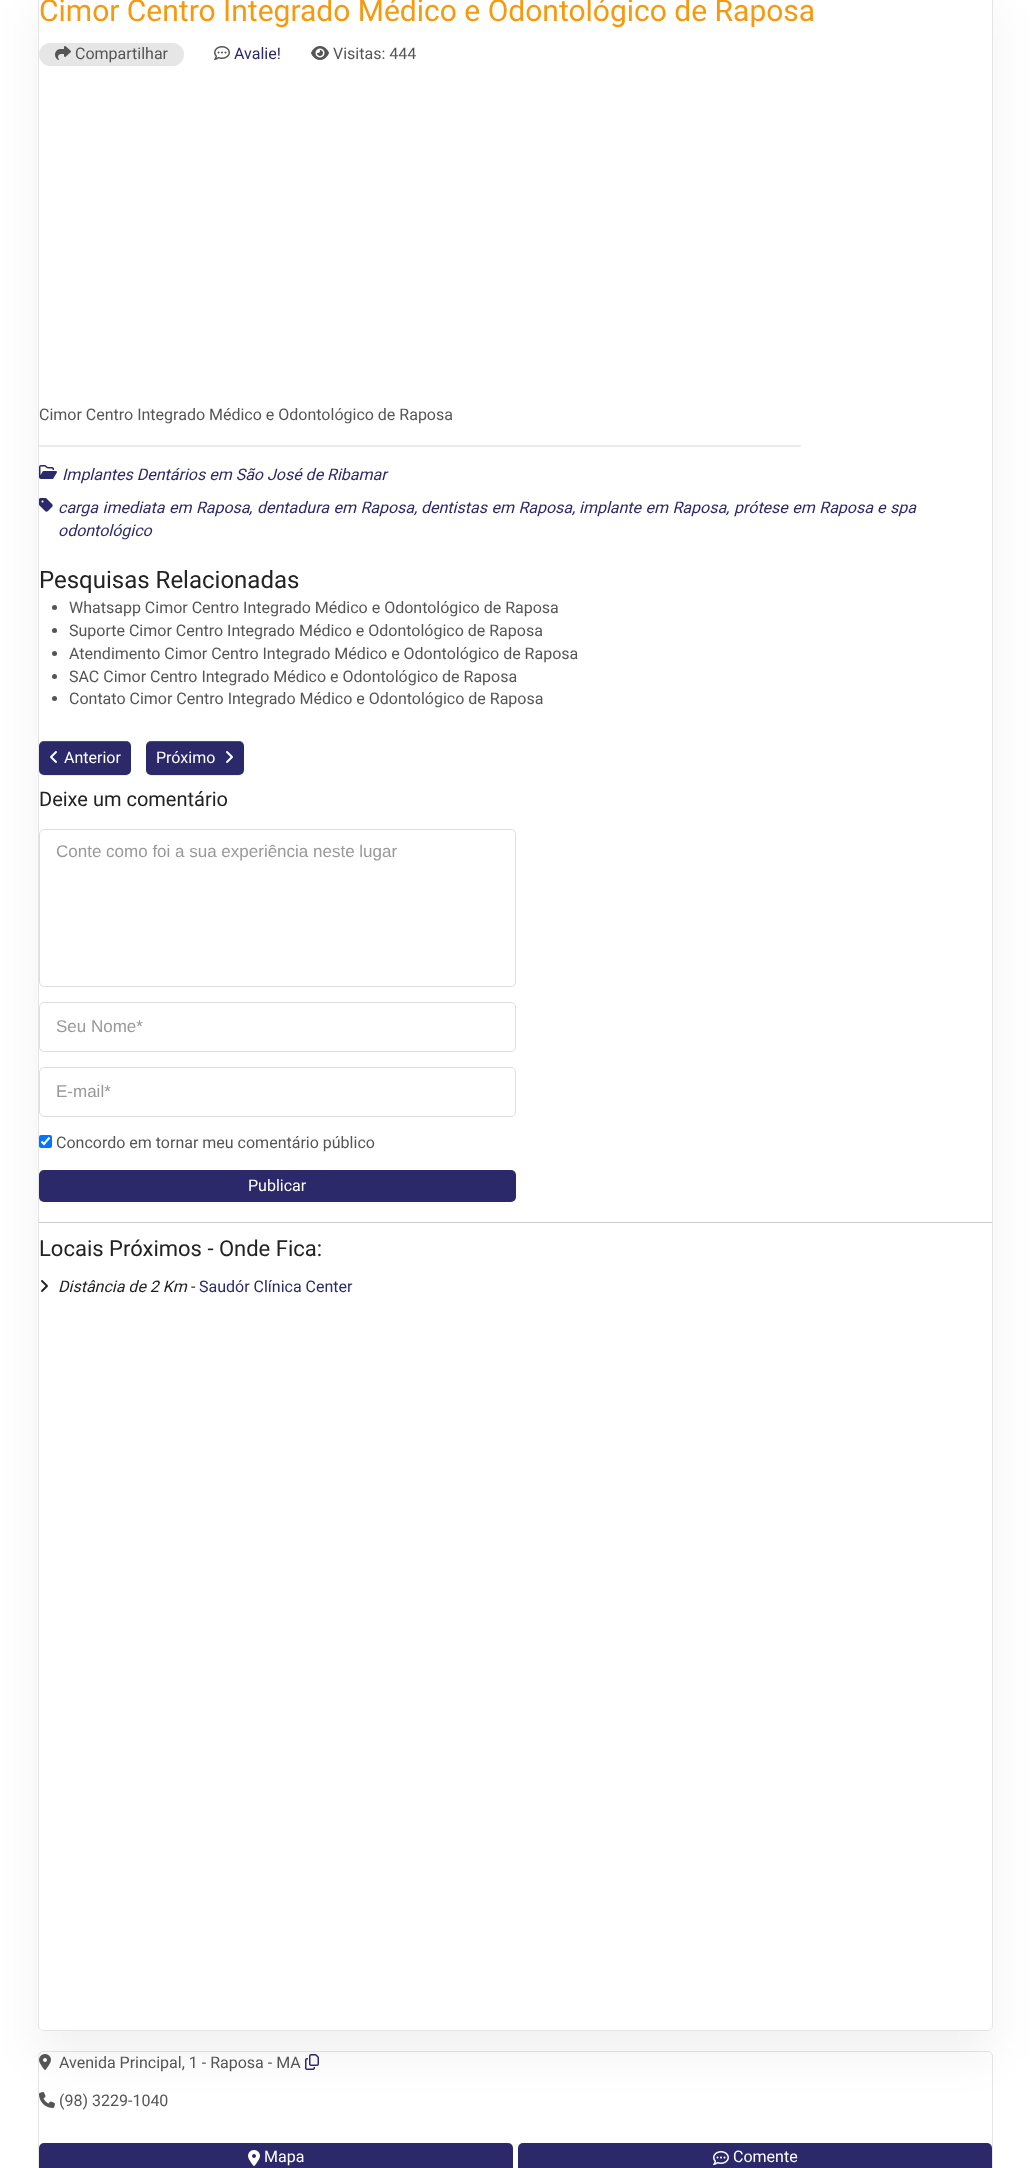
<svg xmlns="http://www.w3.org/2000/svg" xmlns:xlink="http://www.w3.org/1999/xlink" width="1031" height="2168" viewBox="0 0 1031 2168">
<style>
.cls-1{font:30px Roboto;fill:#f6990d}
.cls-2{font:16px Roboto;fill:#555555}
.cls-3{font:16px Roboto;fill:#2b296a}
.cls-4{font:italic 16px Roboto;fill:#2b296a}
.cls-5{font:24px Roboto;fill:#222222}
.cls-6{font:16px Roboto;fill:#ffffff}
.cls-7{font:20px Roboto;fill:#222222}
.cls-8{font:17px Liberation Sans;fill:#999999}
.cls-9{font:22px Roboto;fill:#222222}
.cls-10{font:italic 16px Roboto;fill:#222222}
.cls-11{font:16px Roboto;fill:#222222}
</style>
<defs>
<clipPath id="clip1"><path d="M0 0H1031V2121H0ZM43-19H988C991-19 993-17 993-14V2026C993 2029 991 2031 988 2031H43C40 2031 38 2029 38 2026V-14C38-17 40-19 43-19Z" clip-rule="evenodd"/></clipPath>
</defs>
<rect width="100%" height="100%" fill="#ffffff"/>
<g clip-path="url(#clip1)">
<rect fill="#000000" fill-opacity="0.05" filter="blur(20.5px)" x="38" y="8" width="955" height="2050" rx="5"/>
</g>
<rect fill="none" stroke="#000000" stroke-opacity="0.1" x="38.5" y="-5.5" width="954" height="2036" rx="4.5"/>
<rect fill="#e6e6e6" x="39" y="43" width="145" height="23" rx="11.5"/>
<image xlink:href="image0.png" x="55" y="46" width="16" height="14"/>
<image xlink:href="image1.png" x="214" y="46" width="16" height="14"/>
<image xlink:href="image2.png" x="311" y="46" width="18" height="14"/>
<rect fill="#ebebeb" x="39" y="445" width="762" height="2" rx="1"/>
<image xlink:href="image3.png" x="39" y="465" width="18" height="14"/>
<image xlink:href="image4.png" x="39" y="498" width="14" height="14"/>
<circle fill="#555555" cx="54.5" cy="607.5" r="2.5"/>
<circle fill="#555555" cx="54.5" cy="630.5" r="2.5"/>
<circle fill="#555555" cx="54.5" cy="653.5" r="2.5"/>
<circle fill="#555555" cx="54.5" cy="676.5" r="2.5"/>
<circle fill="#555555" cx="54.5" cy="698.5" r="2.5"/>
<rect fill="#000000" fill-opacity="0.07" filter="blur(0.5px)" x="39" y="742" width="92" height="34" rx="5"/>
<rect fill="#2b296a" x="39" y="741" width="92" height="34" rx="5"/>
<path fill="#ffffff" fill-opacity="0.15" d="M44 742H126C129 742 131 744 131 747C131 738 118 741 112 741H58C52 741 39 738 39 747C39 744 41 742 44 742Z"/>
<image xlink:href="image5.png" x="50" y="751" width="7" height="12"/>
<rect fill="#000000" fill-opacity="0.07" filter="blur(0.5px)" x="146" y="742" width="98" height="34" rx="5"/>
<rect fill="#2b296a" x="146" y="741" width="98" height="34" rx="5"/>
<path fill="#ffffff" fill-opacity="0.15" d="M151 742H239C242 742 244 744 244 747C244 737 230 741 224 741H166C160 741 146 737 146 747C146 744 148 742 151 742Z"/>
<image xlink:href="image6.png" x="226" y="751" width="7" height="12"/>
<rect fill="none" stroke="#dddfe2" x="39.5" y="829.5" width="476" height="157" rx="4.5"/>
<rect fill="none" stroke="#dddfe2" x="39.5" y="1002.5" width="476" height="49" rx="4.5"/>
<rect fill="none" stroke="#dddfe2" x="39.5" y="1067.5" width="476" height="49" rx="4.5"/>
<rect fill="#0075ff" x="39" y="1135" width="13" height="13" rx="2"/>
<path fill="none" stroke="#ffffff" stroke-width="2.1" d="M41.5 1141.5L44 1144L49.5 1137.5"/>
<rect fill="#2b296a" x="39" y="1170" width="477" height="32" rx="5"/>
<rect fill="#cccccc" x="39" y="1222" width="953" height="1"/>
<image xlink:href="image7.png" x="41" y="1280" width="7" height="12"/>
<rect fill="none" stroke="#000000" stroke-opacity="0.1" x="38.5" y="2051.5" width="954" height="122" rx="4.5"/>
<image xlink:href="image8.png" x="39" y="2054" width="12" height="16"/>
<image xlink:href="image9.png" x="305" y="2054" width="14" height="16"/>
<image xlink:href="image10.png" x="39" y="2092" width="16" height="16"/>
<rect fill="#2b296a" x="39" y="2143" width="474" height="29" rx="5"/>
<image xlink:href="image11.png" x="248" y="2150" width="12" height="16"/>
<rect fill="#2b296a" x="518" y="2143" width="474" height="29" rx="5"/>
<image xlink:href="image12.png" x="713" y="2151" width="16" height="14"/>
<text class="cls-1" x="39" y="21">Cimor Centro Integrado Médico e Odontológico de Raposa</text>
<text class="cls-2" x="75" y="59">Compartilhar</text>
<text class="cls-3" x="234" y="59">Avalie!</text>
<text class="cls-2" x="333" y="59">Visitas: 444</text>
<text class="cls-2" x="39" y="420">Cimor Centro Integrado Médico e Odontológico de Raposa</text>
<text class="cls-4" x="62" y="480">Implantes Dentários em São José de Ribamar</text>
<text class="cls-4" x="58" y="513" word-spacing="0.5">carga imediata em Raposa</text>
<text class="cls-4" x="249" y="513">,</text>
<text class="cls-4" x="257" y="513" word-spacing="0.5">dentadura em Raposa</text>
<text class="cls-4" x="414" y="513">,</text>
<text class="cls-4" x="421" y="513" word-spacing="0.5">dentistas em Raposa</text>
<text class="cls-4" x="579" y="513" word-spacing="0.5">implante em Raposa</text>
<text class="cls-4" x="734" y="513" word-spacing="0.5">prótese em Raposa</text>
<text class="cls-4" x="877" y="513">e</text>
<text class="cls-4" x="890" y="513">spa</text>
<text class="cls-4" x="572" y="513">,</text>
<text class="cls-4" x="726" y="513">,</text>
<text class="cls-4" x="58" y="536">odontológico</text>
<text class="cls-5" x="39" y="588">Pesquisas Relacionadas</text>
<text class="cls-2"><tspan x="69" y="613">Whatsapp Cimor Centro Integrado Médico e Odontológico de Raposa</tspan><tspan x="69" y="636">Suporte Cimor Centro Integrado Médico e Odontológico de Raposa</tspan><tspan x="69" y="659">Atendimento Cimor Centro Integrado Médico e Odontológico de Raposa</tspan><tspan x="69" y="682">SAC Cimor Centro Integrado Médico e Odontológico de Raposa</tspan><tspan x="69" y="704">Contato Cimor Centro Integrado Médico e Odontológico de Raposa</tspan></text>
<text class="cls-6" x="64" y="763">Anterior</text>
<text class="cls-6" x="156" y="763">Próximo</text>
<text class="cls-7" x="39" y="806">Deixe um comentário</text>
<text class="cls-8" x="56" y="857">Conte como foi a sua experiência neste lugar</text>
<text class="cls-8" x="56" y="1032">Seu Nome*</text>
<text class="cls-8" x="56" y="1097">E-mail*</text>
<text class="cls-2" x="56" y="1148">Concordo em tornar meu comentário público</text>
<text class="cls-6" x="248" y="1191">Publicar</text>
<text class="cls-9" x="39" y="1256">Locais Próximos - Onde Fica:</text>
<text class="cls-10" x="58" y="1292">Distância de 2 Km</text>
<text class="cls-11" x="191" y="1292">-</text>
<text class="cls-3" x="199" y="1292">Saudór Clínica Center</text>
<text class="cls-2" x="59" y="2068">Avenida Principal, 1 - Raposa - MA</text>
<text class="cls-2" x="59" y="2106">(98) 3229-1040</text>
<text class="cls-6" x="264" y="2162">Mapa</text>
<text class="cls-6" x="733" y="2162">Comente</text>
</svg>
